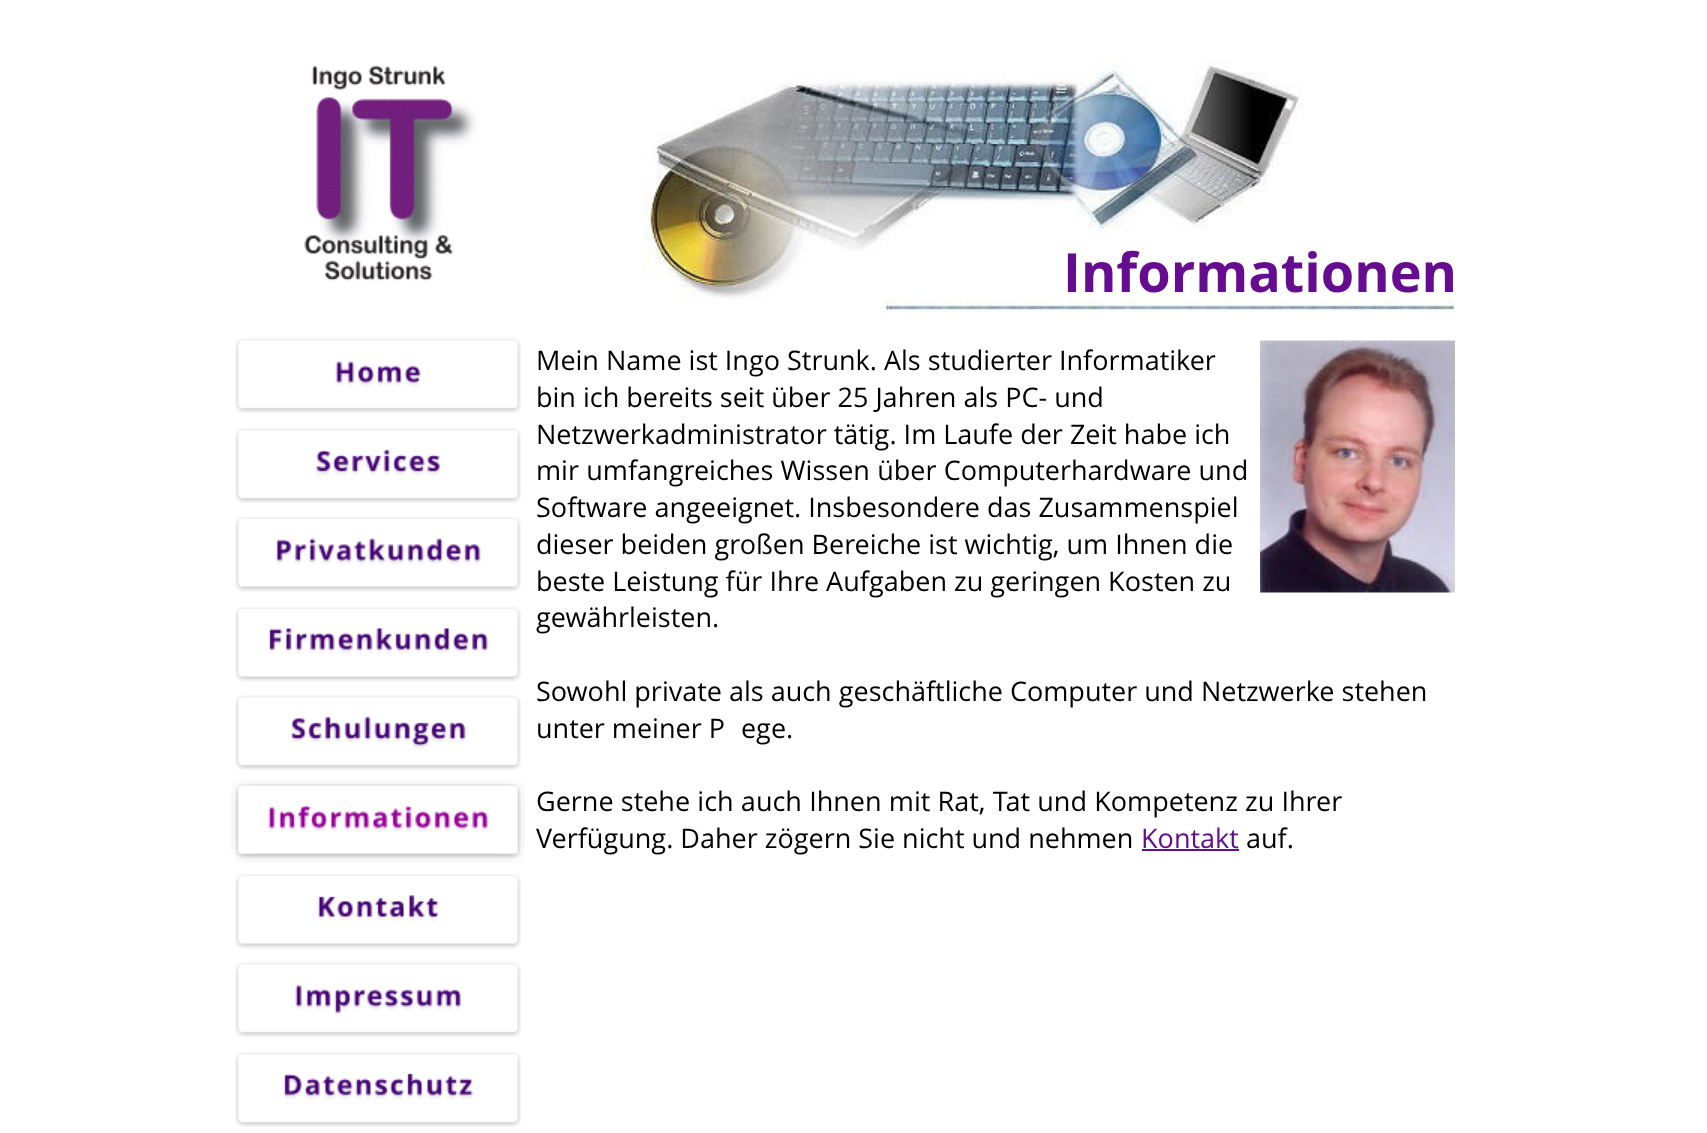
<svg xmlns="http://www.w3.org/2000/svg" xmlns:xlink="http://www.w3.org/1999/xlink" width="1707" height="1133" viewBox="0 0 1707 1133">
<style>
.cls-1{font:bold 54px Open Sans;fill:#650c91}
.cls-2{font:27px Open Sans;fill:#000000}
.cls-3{font:27px Open Sans;fill:#650c91}
</style>
<rect width="100%" height="100%" fill="#ffffff"/>
<image xlink:href="image0.png" x="304" y="65" width="174" height="216"/>
<image xlink:href="image1.png" x="235" y="338" width="286" height="75"/>
<image xlink:href="image2.png" x="235" y="428" width="286" height="75"/>
<image xlink:href="image3.png" x="235" y="517" width="286" height="75"/>
<image xlink:href="image4.png" x="235" y="607" width="286" height="75"/>
<image xlink:href="image5.png" x="235" y="695" width="286" height="75"/>
<image xlink:href="image7.png" x="235" y="784" width="286" height="75"/>
<image xlink:href="image6.png" x="231" y="780" width="294" height="83"/>
<image xlink:href="image8.png" x="235" y="874" width="286" height="75"/>
<image xlink:href="image9.png" x="235" y="962" width="286" height="75"/>
<image xlink:href="image10.png" x="235" y="1052" width="286" height="75"/>
<image xlink:href="image11.png" x="643" y="60" width="812" height="252"/>
<image xlink:href="image12.png" x="1260" y="340" width="195" height="253"/>
<rect fill="#650c91" x="1142" y="849" width="97" height="2"/>
<text class="cls-1" x="1063" y="292">Informationen</text>
<text class="cls-2"><tspan x="536" y="370">Mein Name ist Ingo Strunk. Als studierter Informatiker</tspan><tspan x="536" y="407">bin ich bereits seit über 25 Jahren als PC- und</tspan><tspan x="536" y="444">Netzwerkadministrator tätig. Im Laufe der Zeit habe ich</tspan><tspan x="536" y="480" word-spacing="0.25">mir umfangreiches Wissen über Computerhardware und</tspan><tspan x="536" y="517">Software angeeignet. Insbesondere das Zusammenspiel</tspan><tspan x="536" y="554">dieser beiden großen Bereiche ist wichtig, um Ihnen die</tspan><tspan x="536" y="591">beste Leistung für Ihre Aufgaben zu geringen Kosten zu</tspan><tspan x="536" y="627">gewährleisten.</tspan></text>
<text class="cls-2"><tspan x="536" y="701">Sowohl private als auch geschäftliche Computer und Netzwerke stehen</tspan><tspan x="536" y="738">unter meiner Pflege.</tspan></text>
<text class="cls-2"><tspan x="536" y="811" word-spacing="0.25">Gerne stehe ich auch Ihnen mit Rat, Tat und Kompetenz zu Ihrer</tspan><tspan x="536" y="848">Verfügung. Daher zögern Sie nicht und nehmen</tspan></text>
<text class="cls-3" x="1141" y="848">Kontakt</text>
<text class="cls-2" x="1246" y="848">auf.</text>
</svg>
